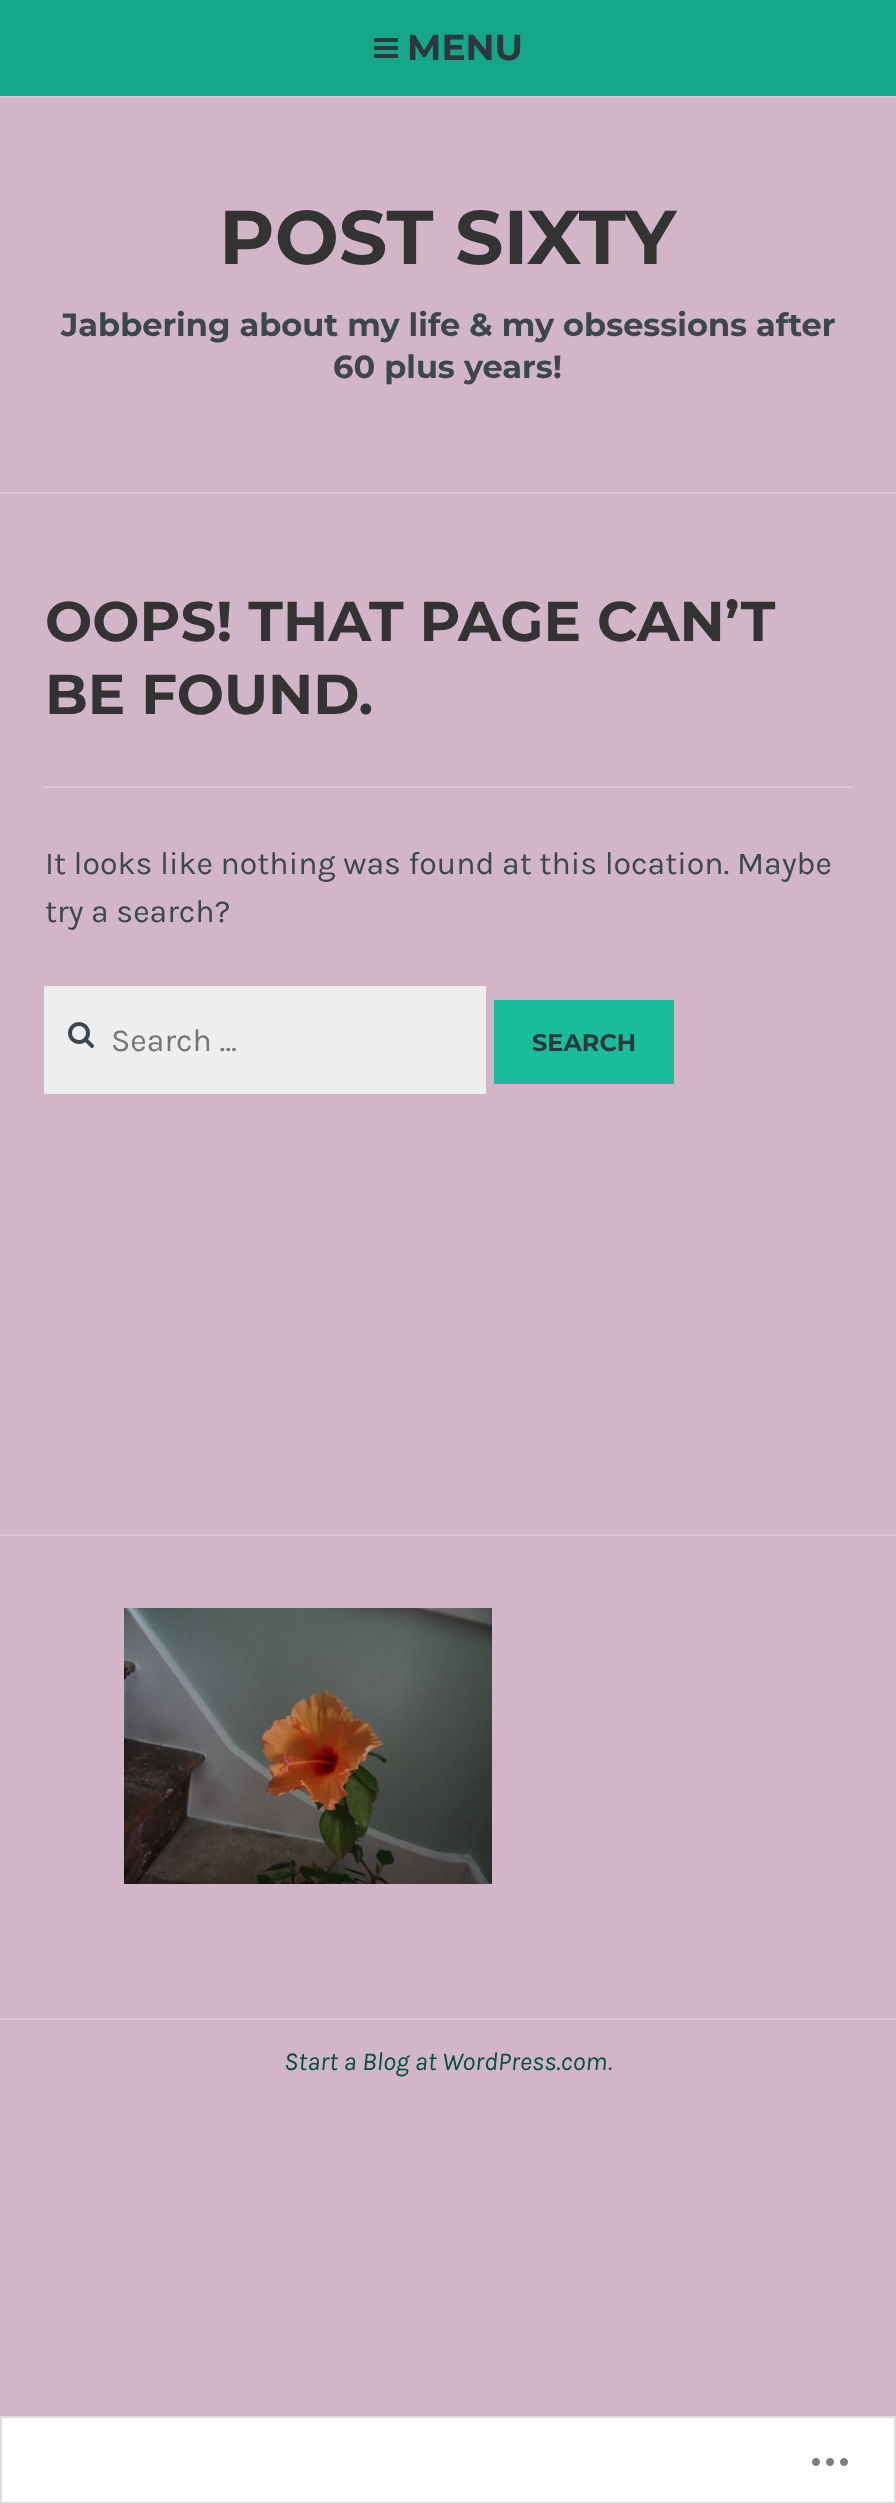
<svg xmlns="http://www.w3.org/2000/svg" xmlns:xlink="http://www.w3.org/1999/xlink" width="896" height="2503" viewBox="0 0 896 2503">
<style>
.cls-1{font:bold 36px Montserrat;fill:#2e373d}
.cls-2{font:bold 76px Montserrat;fill:#333333}
.cls-3{font:bold 32px Montserrat;fill:#3b464e}
.cls-4{font:bold 56px Montserrat;fill:#333333}
.cls-5{font:32px Karla;fill:#3b464e}
.cls-6{font:32px Karla;fill:#757575}
.cls-7{font:bold 24px Montserrat;fill:#2e373d}
.cls-8{font:italic 26px Karla;fill:#005040}
.cls-9{font:italic 26px Karla;fill:#3b464e}
</style>
<rect width="100%" height="100%" fill="#d2b5c7"/>
<rect fill="#dac6d3" x="0" y="96" width="896" height="2"/>
<rect fill="#16a689" x="0" y="0" width="896" height="96"/>
<image xlink:href="image0.png" x="374" y="38" width="24" height="20"/>
<rect fill="#dac6d3" x="0" y="492" width="896" height="2"/>
<rect fill="#dac6d3" x="44" y="786" width="808" height="2"/>
<rect fill="#eeeeee" x="44" y="986" width="442" height="108"/>
<image xlink:href="image1.png" x="68" y="1022" width="26" height="26"/>
<rect fill="#1abc9c" x="494" y="1000" width="180" height="84"/>
<rect fill="#dac6d3" x="0" y="1534" width="896" height="2"/>
<image xlink:href="image2.png" x="124" y="1608" width="368" height="276"/>
<rect fill="#dac6d3" x="0" y="2018" width="896" height="2"/>
<rect fill="#fefefe" stroke="#dcdbde" stroke-width="2" x="1" y="2417" width="894" height="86"/>
<image xlink:href="image3.png" x="812" y="2458" width="36" height="8"/>
<text class="cls-1" x="407" y="60">MENU</text>
<text class="cls-2" x="219" y="264">POST SIXTY</text>
<text class="cls-3" x="61" y="336">Jabbering about my life &amp; my obsessions after</text>
<text class="cls-3" x="333" y="378">60 plus years!</text>
<text class="cls-4"><tspan x="45" y="641">OOPS! THAT PAGE CAN’T</tspan><tspan x="45" y="714">BE FOUND.</tspan></text>
<text class="cls-5"><tspan x="45" y="874">It looks like nothing was found at this location. Maybe</tspan><tspan x="45" y="922">try a search?</tspan></text>
<text class="cls-6" x="111" y="1051">Search …</text>
<text class="cls-7" x="532" y="1051">SEARCH</text>
<text class="cls-8" x="284" y="2070">Start a Blog at WordPress.com</text>
<text class="cls-9" x="608" y="2070">.</text>
</svg>
